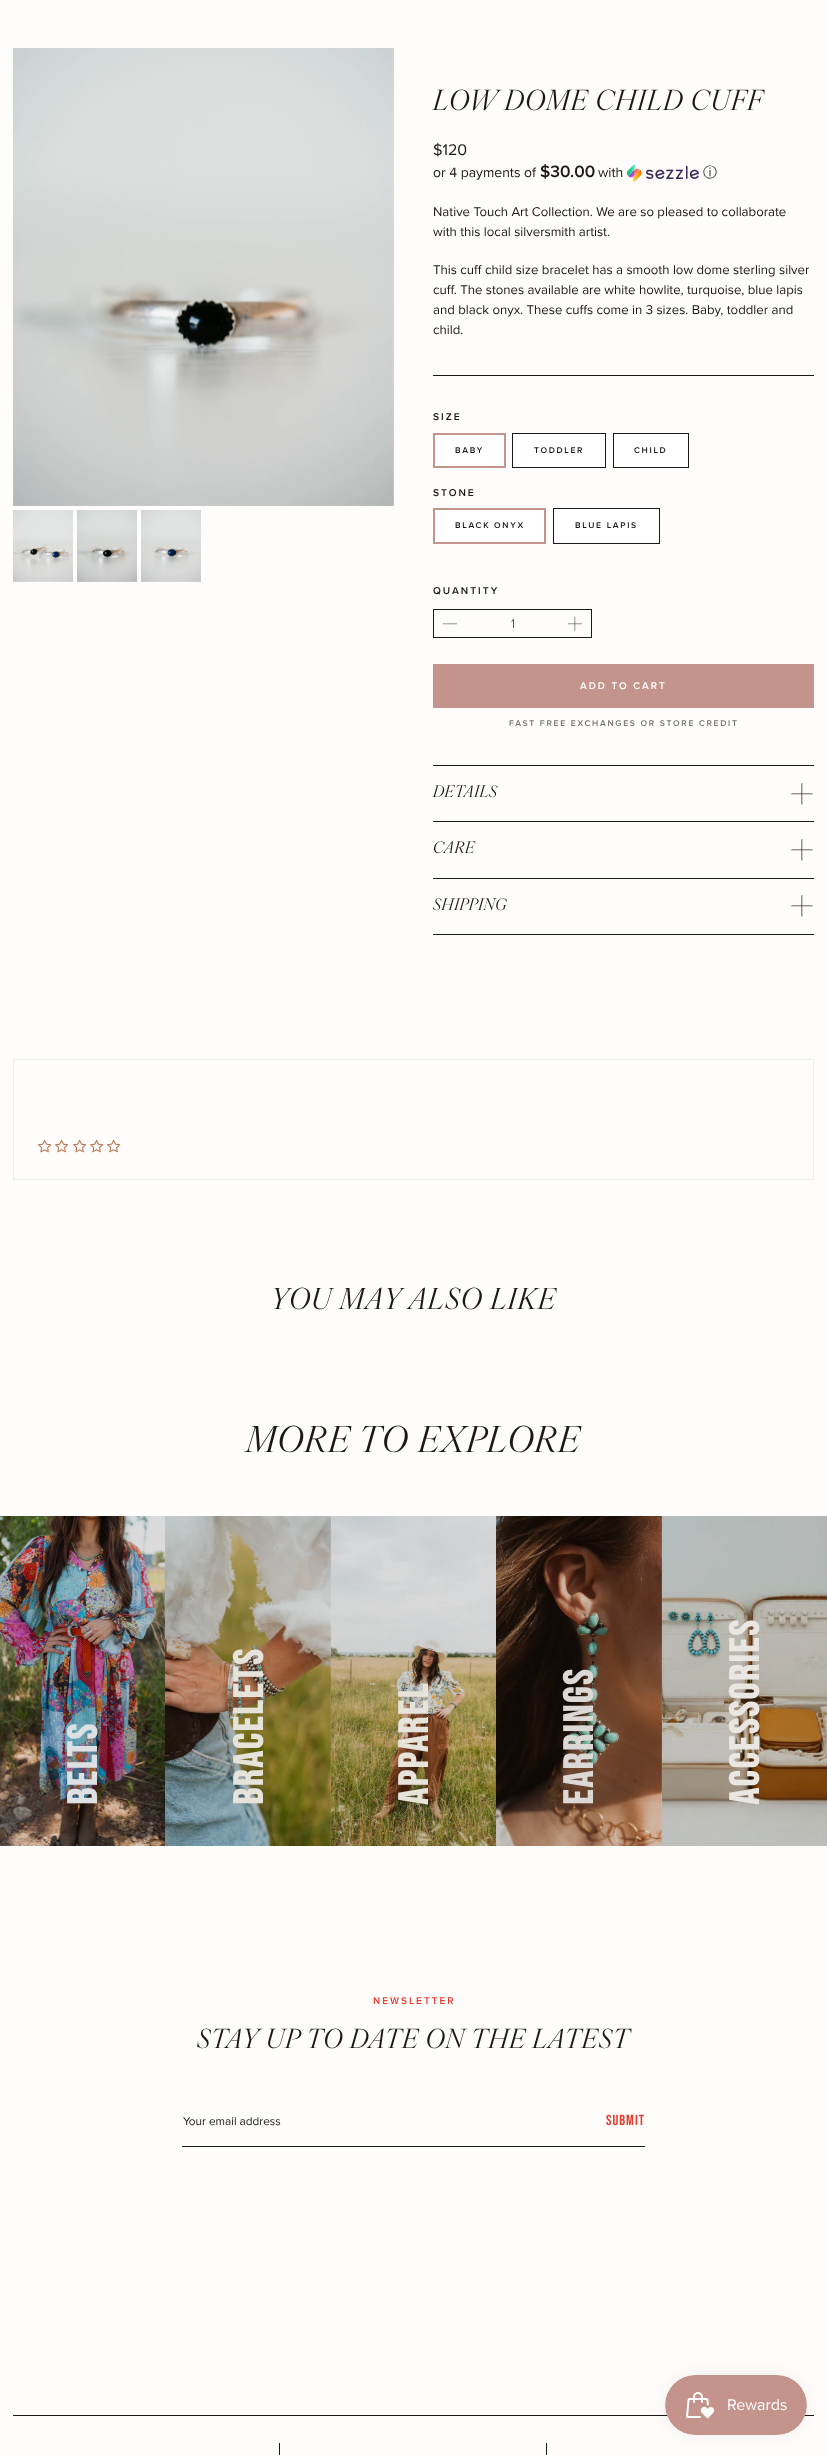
<svg xmlns="http://www.w3.org/2000/svg" xmlns:xlink="http://www.w3.org/1999/xlink" width="827" height="2455" viewBox="0 0 827 2455">
<style>
.cls-1{font:italic 27.75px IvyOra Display;letter-spacing:1.4px;fill:#1b1818}
.cls-2{font:16px Proxima Nova;fill:#1b1818}
.cls-3{font:14px Proxima Nova;fill:#1b1818}
.cls-4{font:600 17px Proxima Nova;fill:#1b1818}
.cls-5{font:500 14px WenQuanYi Zen Hei;fill:#1b1818}
.cls-6{font:13.2px Proxima Nova;fill:#1b1818}
.cls-7{font:600 10.25px Proxima Nova;letter-spacing:2px;fill:#1b1818}
.cls-8{font:600 8.6px Proxima Nova;letter-spacing:1.7px;fill:#1b1818}
.cls-9{font:300 13px Proxima Nova;fill:#1b1818}
.cls-10{font:600 10px Proxima Nova;letter-spacing:2px;fill:#ffffff}
.cls-11{font:600 8.6px Proxima Nova;letter-spacing:1.7px;fill:#7a7373}
.cls-12{font:italic 16px IvyOra Display;letter-spacing:0.75px;fill:#1b1818}
.cls-13{font:italic 29px IvyOra Display;letter-spacing:1.5px;fill:#1b1818}
.cls-14{font:italic 35.75px IvyOra Display;letter-spacing:1.75px;fill:#1b1818}
.cls-15{font:bold 41px Bebas Neue;letter-spacing:2px;fill:#dee1e4}
.cls-16{font:bold 41px Bebas Neue;letter-spacing:2px;fill:#e5e3da}
.cls-17{font:bold 41px Bebas Neue;letter-spacing:2px;fill:#dbd8d5}
.cls-18{font:bold 41px Bebas Neue;letter-spacing:2px;fill:#eae7e3}
.cls-19{font:600 10px Proxima Nova;letter-spacing:2px;fill:#e73b2e}
.cls-20{font:italic 26.4px IvyOra Display;letter-spacing:1.3px;fill:#1b1818}
.cls-21{font:11.75px Proxima Nova;fill:#1b1818}
.cls-22{font:14.5px Bebas Neue;letter-spacing:1px;fill:#e73b2e}
</style>
<rect width="100%" height="100%" fill="#fefdfc"/>
<image xlink:href="image0.png" x="13" y="48" width="380" height="458"/>
<image xlink:href="image1.png" x="393" y="48" width="1" height="458"/>
<image xlink:href="image2.png" x="13" y="510" width="60" height="72"/>
<image xlink:href="image3.png" x="77" y="510" width="60" height="72"/>
<image xlink:href="image4.png" x="141" y="510" width="60" height="72"/>
<image xlink:href="image5.png" x="627" y="164" width="72" height="18"/>
<rect fill="#1b1818" x="433" y="375" width="381" height="1"/>
<rect fill="#ffffff" stroke="#c4948c" x="434.5" y="434.5" width="70" height="32"/>
<rect fill="none" stroke="#c4948c" x="433.5" y="433.5" width="72" height="34"/>
<rect fill="#ffffff" stroke="#1b1818" x="512.5" y="433.5" width="93" height="34"/>
<rect fill="#ffffff" stroke="#1b1818" x="613.5" y="433.5" width="75" height="34"/>
<rect fill="#ffffff" stroke="#c4948c" x="434.5" y="509.5" width="110" height="33"/>
<rect fill="none" stroke="#c4948c" x="433.5" y="508.5" width="112" height="35"/>
<rect fill="#ffffff" stroke="#1b1818" x="553.5" y="508.5" width="106" height="35"/>
<rect fill="none" stroke="#1b1818" x="433.5" y="609.5" width="158" height="28"/>
<image xlink:href="image6.png" x="442" y="623" width="15" height="2"/>
<image xlink:href="image7.png" x="567" y="616" width="15" height="15"/>
<rect fill="#c4948c" x="433" y="664" width="381" height="44"/>
<rect fill="#1b1818" x="433" y="765" width="381" height="1"/>
<rect fill="#1b1818" x="433" y="821" width="381" height="1"/>
<image xlink:href="image8.png" x="791" y="783" width="22" height="22"/>
<rect fill="#1b1818" x="433" y="878" width="381" height="1"/>
<image xlink:href="image8.png" x="791" y="839" width="22" height="22"/>
<rect fill="#1b1818" x="433" y="934" width="381" height="1"/>
<image xlink:href="image8.png" x="791" y="895" width="22" height="22"/>
<rect fill="none" stroke="#eeeeee" x="13.5" y="1059.5" width="800" height="120"/>
<image xlink:href="image9.png" x="38" y="1139" width="14" height="14"/>
<image xlink:href="image9.png" x="55" y="1139" width="14" height="14"/>
<image xlink:href="image9.png" x="73" y="1139" width="14" height="14"/>
<image xlink:href="image9.png" x="90" y="1139" width="14" height="14"/>
<image xlink:href="image9.png" x="107" y="1139" width="14" height="14"/>
<image xlink:href="image10.png" x="0" y="1516" width="165" height="330"/>
<image xlink:href="image11.png" x="165" y="1516" width="166" height="330"/>
<image xlink:href="image12.png" x="331" y="1516" width="165" height="330"/>
<image xlink:href="image13.png" x="496" y="1516" width="166" height="330"/>
<image xlink:href="image14.png" x="662" y="1516" width="165" height="330"/>
<rect fill="#1b1818" x="182" y="2146" width="463" height="1"/>
<rect fill="#1b1818" x="13" y="2415" width="801" height="1"/>
<rect fill="#1b1818" x="279" y="2443" width="1" height="12"/>
<rect fill="#1b1818" x="546" y="2443" width="1" height="12"/>
<rect fill="#000000" fill-opacity="0.05" filter="blur(12.5px)" x="665" y="2375" width="142" height="60" rx="30"/>
<image xlink:href="image15.png" x="665" y="2375" width="142" height="60"/>
<text class="cls-1" x="433" y="110">LOW DOME CHILD CUFF</text>
<text class="cls-2" x="433" y="155">$120</text>
<text class="cls-3" x="433" y="177">or 4 payments of</text>
<text class="cls-4" x="540" y="177">$30.00</text>
<text class="cls-3" x="598" y="177">with</text>
<text class="cls-5" x="703" y="177">ⓘ</text>
<text class="cls-6"><tspan x="433" y="216">Native Touch Art Collection. We are so pleased to collaborate</tspan><tspan x="433" y="236">with this local silversmith artist.</tspan></text>
<text class="cls-6"><tspan x="433" y="274">This cuff child size bracelet has a smooth low dome sterling silver</tspan><tspan x="433" y="294">cuff. The stones available are white howlite, turquoise, blue lapis</tspan><tspan x="433" y="314">and black onyx. These cuffs come in 3 sizes. Baby, toddler and</tspan><tspan x="433" y="334">child.</tspan></text>
<text class="cls-7" x="433" y="420">SIZE</text>
<text class="cls-8" x="455" y="453">BABY</text>
<text class="cls-8" x="534" y="453">TODDLER</text>
<text class="cls-8" x="634" y="453">CHILD</text>
<text class="cls-7" x="433" y="496">STONE</text>
<text class="cls-8" x="455" y="528">BLACK ONYX</text>
<text class="cls-8" x="575" y="528">BLUE LAPIS</text>
<text class="cls-7" x="433" y="594">QUANTITY</text>
<text class="cls-9" x="511" y="628">1</text>
<text class="cls-10" x="580" y="689">ADD TO CART</text>
<text class="cls-11" x="509" y="726">FAST FREE EXCHANGES OR STORE CREDIT</text>
<text class="cls-12" x="433" y="797">DETAILS</text>
<text class="cls-12" x="433" y="853">CARE</text>
<text class="cls-12" x="433" y="910">SHIPPING</text>
<text class="cls-13" x="270" y="1309">YOU MAY ALSO LIKE</text>
<text class="cls-14" x="246" y="1452">MORE TO EXPLORE</text>
<text class="cls-15" x="97" y="1805" transform="rotate(-90 97 1805)">BELTS</text>
<text class="cls-16" x="263" y="1805" transform="rotate(-90 263 1805)">BRACELETS</text>
<text class="cls-16" x="428" y="1805" transform="rotate(-90 428 1805)">APPAREL</text>
<text class="cls-17" x="593" y="1805" transform="rotate(-90 593 1805)">EARRINGS</text>
<text class="cls-18" x="759" y="1805" transform="rotate(-90 759 1805)">ACCESSORIES</text>
<text class="cls-19" x="373" y="2004">NEWSLETTER</text>
<text class="cls-20" x="197" y="2048">STAY UP TO DATE ON THE LATEST</text>
<text class="cls-21" x="183" y="2125">Your email address</text>
<text class="cls-22" x="606" y="2125">Submit</text>
</svg>
